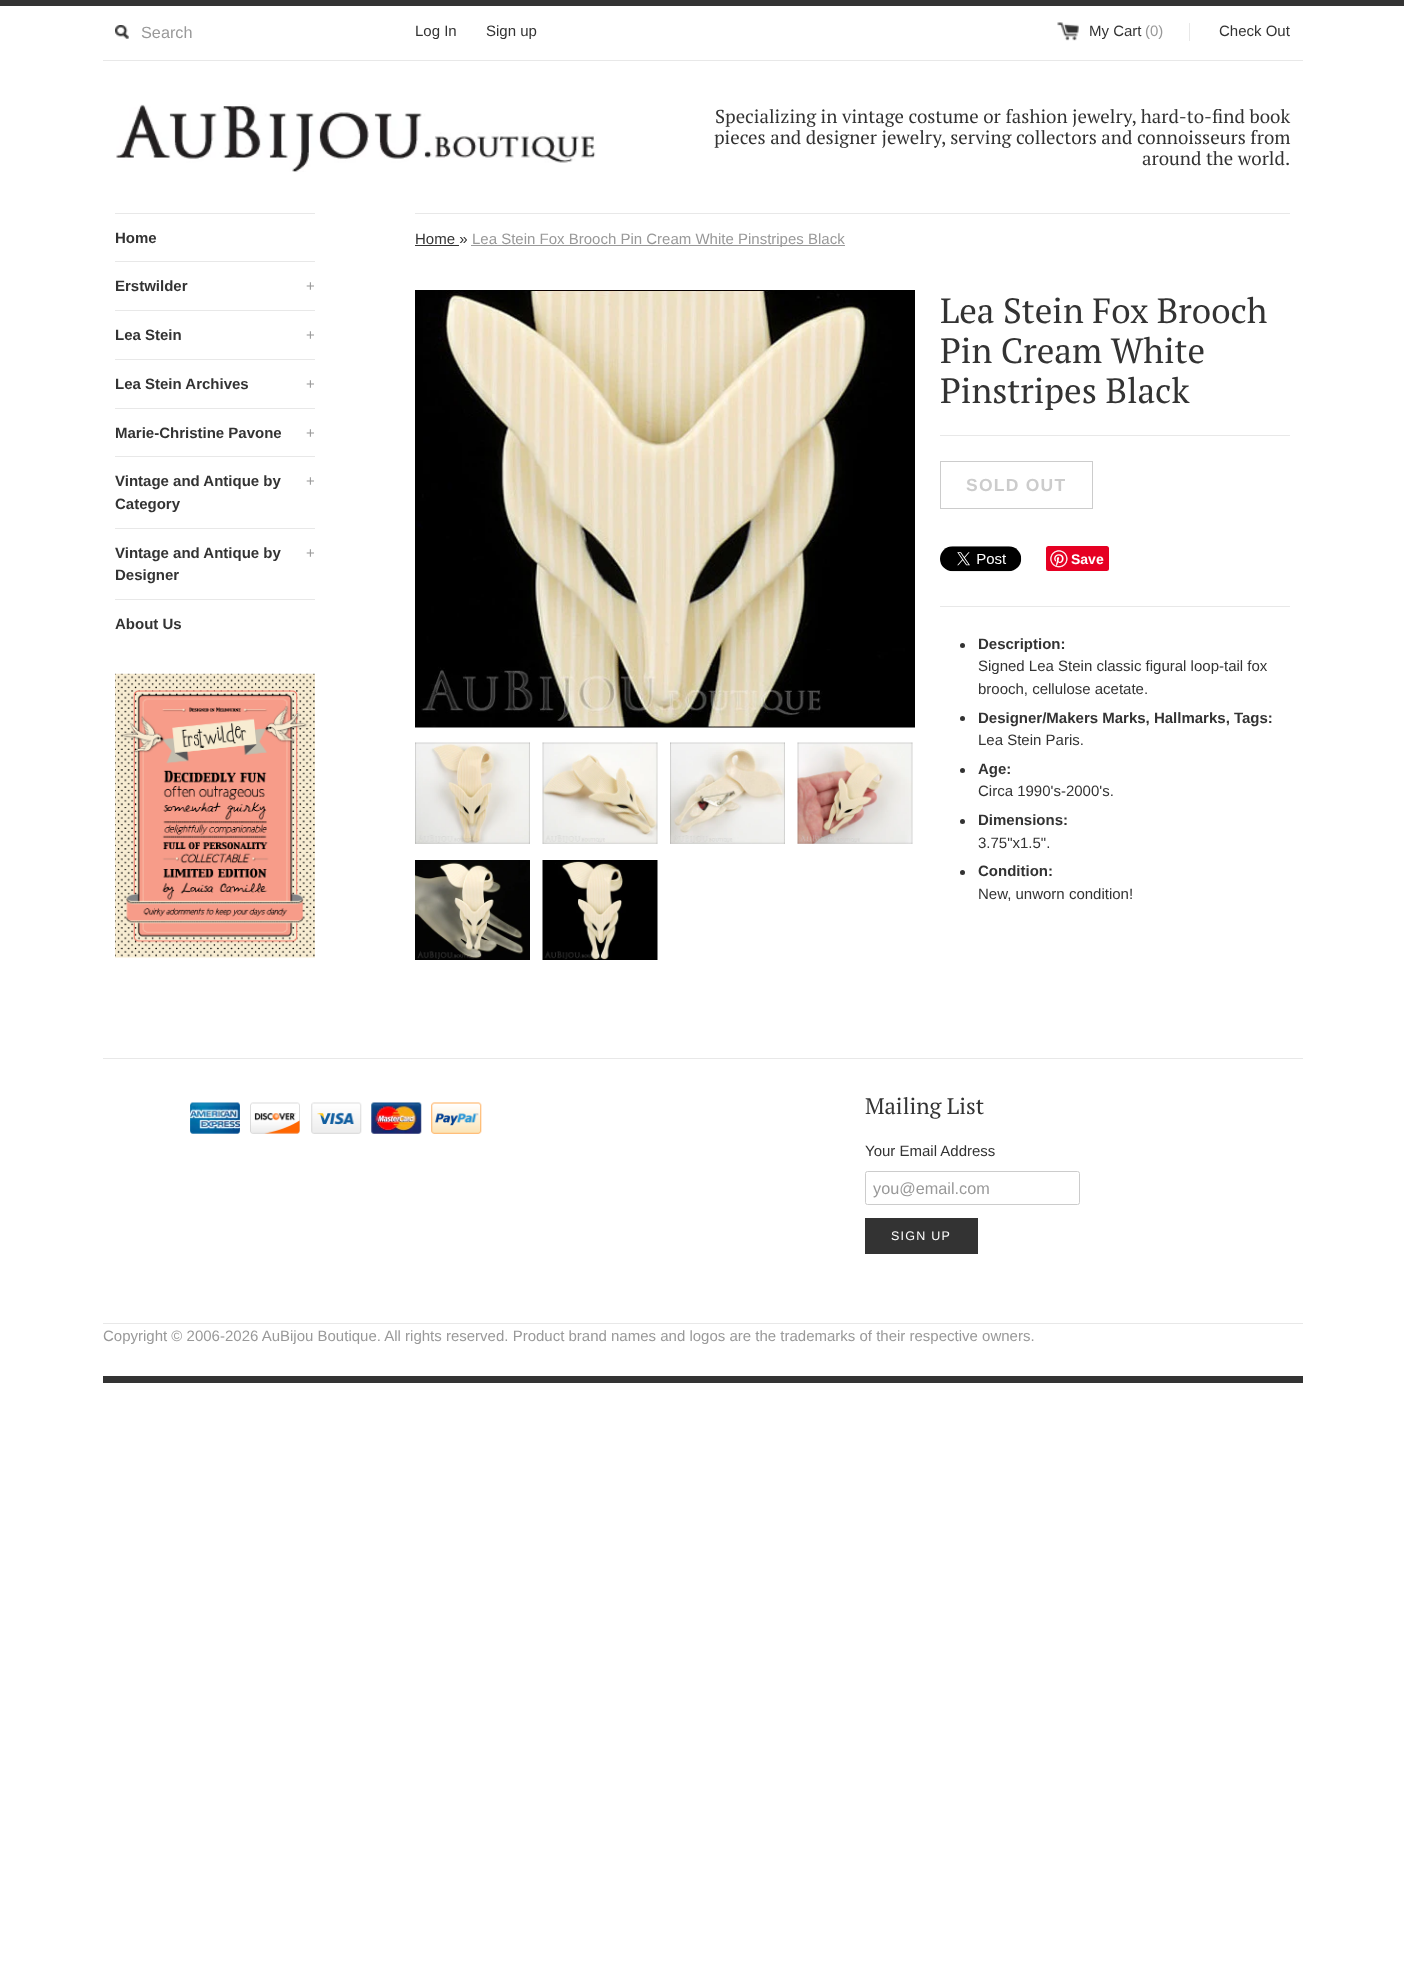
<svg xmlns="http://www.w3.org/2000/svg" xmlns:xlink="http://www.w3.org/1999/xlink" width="1404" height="1976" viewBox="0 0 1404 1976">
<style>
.cls-1{font:16.25px Liberation Sans;fill:#999999}
.cls-2{font:15px Liberation Sans;fill:#333333}
.cls-3{font:15px Liberation Sans;fill:#999999}
.cls-4{font:18.75px PT Serif;fill:#333333}
.cls-5{font:bold 15px Liberation Sans;fill:#333333}
.cls-6{font:35px PT Serif;fill:#333333}
.cls-7{font:bold 17.5px Liberation Sans;letter-spacing:1.25px;fill:#cccccc}
.cls-8{font:bold 14px Liberation Sans;fill:#ffffff}
.cls-9{font:22.5px PT Serif;fill:#333333}
.cls-10{font:12.5px Liberation Sans;letter-spacing:1.25px;fill:#ffffff}
</style>
<rect width="100%" height="100%" fill="#ffffff"/>
<rect fill="#333333" x="0" y="0" width="1404" height="6"/>
<rect fill="#e8e8e8" x="103" y="60" width="1200" height="1"/>
<image xlink:href="image0.png" x="115" y="25" width="14" height="14"/>
<image xlink:href="image1.png" x="1057" y="22" width="22" height="19"/>
<rect fill="#e8e8e8" x="1189" y="23" width="1" height="18"/>
<image xlink:href="image2.png" x="116" y="104" width="480" height="68"/>
<rect fill="#e8e8e8" x="115" y="213" width="200" height="1"/>
<rect fill="#e8e8e8" x="115" y="261" width="200" height="1"/>
<rect fill="#e8e8e8" x="115" y="310" width="200" height="1"/>
<rect fill="#e8e8e8" x="115" y="359" width="200" height="1"/>
<rect fill="#e8e8e8" x="115" y="408" width="200" height="1"/>
<rect fill="#e8e8e8" x="115" y="456" width="200" height="1"/>
<rect fill="#e8e8e8" x="115" y="528" width="200" height="1"/>
<rect fill="#e8e8e8" x="115" y="599" width="200" height="1"/>
<image xlink:href="image3.png" x="115" y="673" width="200" height="285"/>
<rect fill="#e8e8e8" x="415" y="213" width="875" height="1"/>
<rect fill="#333333" x="415" y="245" width="44" height="1"/>
<rect fill="#999999" x="471" y="245" width="374" height="1"/>
<image xlink:href="image4.png" x="415" y="290" width="500" height="438"/>
<image xlink:href="image5.png" x="415" y="742" width="115" height="102"/>
<image xlink:href="image6.png" x="542" y="742" width="116" height="102"/>
<image xlink:href="image7.png" x="670" y="742" width="115" height="102"/>
<image xlink:href="image8.png" x="797" y="742" width="116" height="102"/>
<image xlink:href="image9.png" x="415" y="860" width="115" height="100"/>
<image xlink:href="image10.png" x="542" y="860" width="116" height="100"/>
<rect fill="#e8e8e8" x="940" y="435" width="350" height="1"/>
<rect fill="none" stroke="#cccccc" x="940.5" y="461.5" width="152" height="47"/>
<image xlink:href="image11.png" x="940" y="546" width="82" height="26"/>
<rect fill="#e60023" x="1046" y="546" width="63" height="25" rx="2.5"/>
<image xlink:href="image12.png" x="1050" y="550" width="18" height="18"/>
<rect fill="#e8e8e8" x="940" y="606" width="350" height="1"/>
<circle fill="#333333" cx="962.5" cy="645.5" r="2.5"/>
<circle fill="#333333" cx="962.5" cy="718.5" r="2.5"/>
<circle fill="#333333" cx="962.5" cy="770.5" r="2.5"/>
<circle fill="#333333" cx="962.5" cy="821.5" r="2.5"/>
<circle fill="#333333" cx="962.5" cy="872.5" r="2.5"/>
<rect fill="#333333" x="103" y="1376" width="1200" height="7"/>
<rect fill="#e8e8e8" x="103" y="1058" width="1200" height="1"/>
<image xlink:href="image13.png" x="190" y="1102" width="50" height="32"/>
<image xlink:href="image14.png" x="250" y="1102" width="50" height="32"/>
<image xlink:href="image15.png" x="311" y="1102" width="51" height="32"/>
<image xlink:href="image16.png" x="371" y="1102" width="51" height="32"/>
<image xlink:href="image17.png" x="431" y="1102" width="51" height="32"/>
<rect fill="none" stroke="#cccccc" x="865.5" y="1171.5" width="214" height="33" rx="2"/>
<rect fill="#333333" x="865" y="1218" width="113" height="36"/>
<rect fill="#e8e8e8" x="103" y="1323" width="1200" height="1"/>
<text class="cls-1" x="141" y="38">Search</text>
<text class="cls-2" x="415" y="36">Log In</text>
<text class="cls-2" x="486" y="36">Sign up</text>
<text class="cls-2" x="1089" y="36">My Cart</text>
<text class="cls-3" x="1145" y="36">(0)</text>
<text class="cls-2" x="1219" y="36">Check Out</text>
<text class="cls-4" x="715" y="123">Specializing in vintage costume or fashion jewelry, hard-to-find book</text>
<text class="cls-4" x="714" y="144">pieces and designer jewelry, serving collectors and connoisseurs from</text>
<text class="cls-4" x="1142" y="165">around the world.</text>
<text class="cls-5" x="115" y="243">Home</text>
<text class="cls-5" x="115" y="291">Erstwilder</text>
<text class="cls-3" x="306" y="291">+</text>
<text class="cls-5" x="115" y="340">Lea Stein</text>
<text class="cls-3" x="306" y="340">+</text>
<text class="cls-5" x="115" y="389">Lea Stein Archives</text>
<text class="cls-3" x="306" y="389">+</text>
<text class="cls-5" x="115" y="438">Marie-Christine Pavone</text>
<text class="cls-3" x="306" y="438">+</text>
<text class="cls-5" x="115" y="486">Vintage and Antique by</text>
<text class="cls-3" x="306" y="486">+</text>
<text class="cls-5" x="115" y="509">Category</text>
<text class="cls-5" x="115" y="558">Vintage and Antique by</text>
<text class="cls-3" x="306" y="558">+</text>
<text class="cls-5" x="115" y="580">Designer</text>
<text class="cls-5" x="115" y="629">About Us</text>
<text class="cls-2" x="415" y="244">Home »</text>
<text class="cls-3" x="472" y="244">Lea Stein Fox Brooch Pin Cream White Pinstripes Black</text>
<text class="cls-6"><tspan x="940" y="323">Lea Stein Fox Brooch</tspan><tspan x="940" y="363">Pin Cream White</tspan><tspan x="940" y="403">Pinstripes Black</tspan></text>
<text class="cls-7" x="966" y="491">SOLD OUT</text>
<text class="cls-8" x="1071" y="564">Save</text>
<text class="cls-5" x="978" y="649">Description:</text>
<text class="cls-2"><tspan x="978" y="671">Signed Lea Stein classic figural loop-tail fox</tspan><tspan x="978" y="694">brooch, cellulose acetate.</tspan></text>
<text class="cls-5" x="978" y="723">Designer/Makers Marks, Hallmarks, Tags:</text>
<text class="cls-2" x="978" y="745">Lea Stein Paris.</text>
<text class="cls-5" x="978" y="774">Age:</text>
<text class="cls-2" x="978" y="796">Circa 1990's-2000's.</text>
<text class="cls-5" x="978" y="825">Dimensions:</text>
<text class="cls-2" x="978" y="848">3.75"x1.5".</text>
<text class="cls-5" x="978" y="876">Condition:</text>
<text class="cls-2" x="978" y="899">New, unworn condition!</text>
<text class="cls-9" x="865" y="1114">Mailing List</text>
<text class="cls-2" x="865" y="1156">Your Email Address</text>
<text class="cls-1" x="873" y="1194">you@email.com</text>
<text class="cls-10" x="891" y="1240">SIGN UP</text>
<text class="cls-3" x="103" y="1341">Copyright © 2006-2026 AuBijou Boutique. All rights reserved. Product brand names and logos are the trademarks of their respective owners.</text>
</svg>
